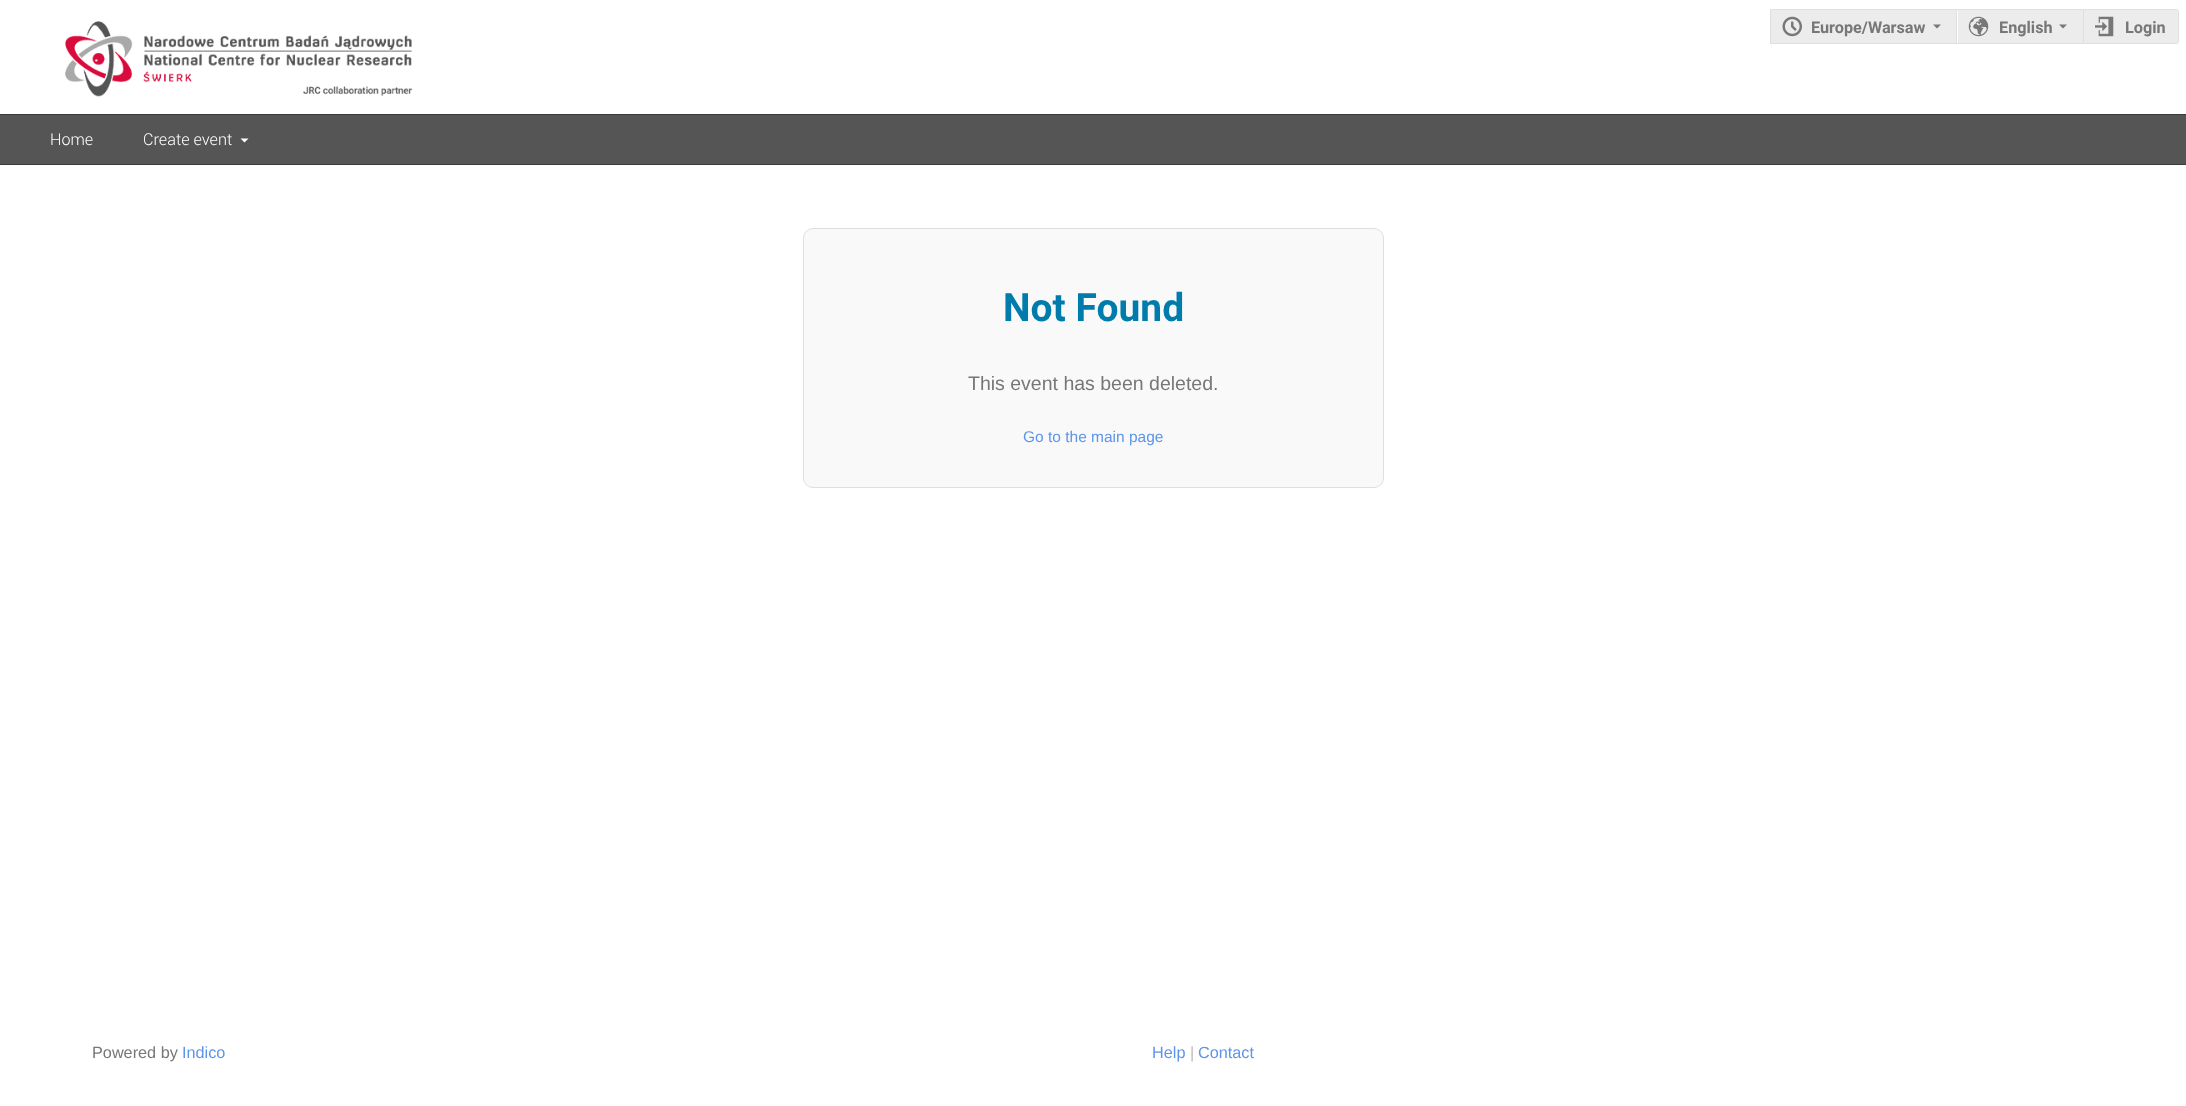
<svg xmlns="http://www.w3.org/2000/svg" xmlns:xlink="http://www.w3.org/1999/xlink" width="2186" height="1106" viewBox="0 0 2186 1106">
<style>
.cls-1{font:bold 16.25px Roboto;fill:#777777}
.cls-2{font:300 16.25px Roboto;fill:#ffffff}
.cls-3{font:bold 39px Roboto;fill:#007cac}
.cls-4{font:19.5px Liberation Sans;fill:#777777}
.cls-5{font:15.5px Liberation Sans;fill:#5d95ea}
.cls-6{font:16.25px Liberation Sans;fill:#777777}
.cls-7{font:16.25px Liberation Sans;fill:#5d95ea}
.cls-8{font:16.25px Liberation Sans;fill:#bbbbbb}
</style>
<rect width="100%" height="100%" fill="#ffffff"/>
<image xlink:href="image0.png" x="65" y="21" width="348" height="76"/>
<rect fill="#ececec" x="1771" y="10" width="185" height="33"/>
<rect fill="#dfdfdf" x="1770" y="9" width="313" height="1"/>
<rect fill="#dfdfdf" x="1770" y="43" width="313" height="1"/>
<rect fill="#dfdfdf" x="1770" y="9" width="1" height="35"/>
<image xlink:href="image1.png" x="1782" y="16" width="20" height="21"/>
<path fill="#777777" d="M1933 24.5L1937 28.5L1941 24.5Z"/>
<rect fill="#ececec" x="1958" y="10" width="125" height="33"/>
<rect fill="#dfdfdf" x="1956" y="9" width="1" height="35"/>
<image xlink:href="image2.png" x="1968" y="16" width="21" height="21"/>
<path fill="#777777" d="M2059 24.5L2063 28.5L2067 24.5Z"/>
<path fill="#ececec" stroke="#dfdfdf" d="M2083.5 9.5H2176.5C2177.5 9.5 2178.5 10.5 2178.5 11.5V41.5C2178.5 42.5 2177.5 43.5 2176.5 43.5H2083.5Z"/>
<image xlink:href="image3.png" x="2095" y="16" width="19" height="21"/>
<rect fill="#555555" x="0" y="115" width="2186" height="49"/>
<rect fill="#3b3b3b" x="0" y="114" width="2186" height="1"/>
<rect fill="#3b3b3b" x="0" y="164" width="2186" height="1"/>
<path fill="#ffffff" d="M240.5 138.5L244.5 142.5L248.5 138.5Z"/>
<rect fill="#f9f9f9" stroke="#dfdfdf" x="803.5" y="228.5" width="580" height="259" rx="9.5"/>
<text class="cls-1" x="1811" y="33">Europe/Warsaw</text>
<text class="cls-1" x="1999" y="33">English</text>
<text class="cls-1" x="2125" y="33">Login</text>
<text class="cls-2" x="50" y="145">Home</text>
<text class="cls-2" x="143" y="145">Create event</text>
<text class="cls-3" x="1003" y="321">Not Found</text>
<text class="cls-4" x="968" y="390">This event has been deleted.</text>
<text class="cls-5" x="1023" y="442">Go to the main page</text>
<text class="cls-6" x="92" y="1058">Powered by</text>
<text class="cls-7" x="182" y="1058">Indico</text>
<text class="cls-7" x="1152" y="1058">Help</text>
<text class="cls-8" x="1190" y="1058">|</text>
<text class="cls-7" x="1198" y="1058">Contact</text>
</svg>
